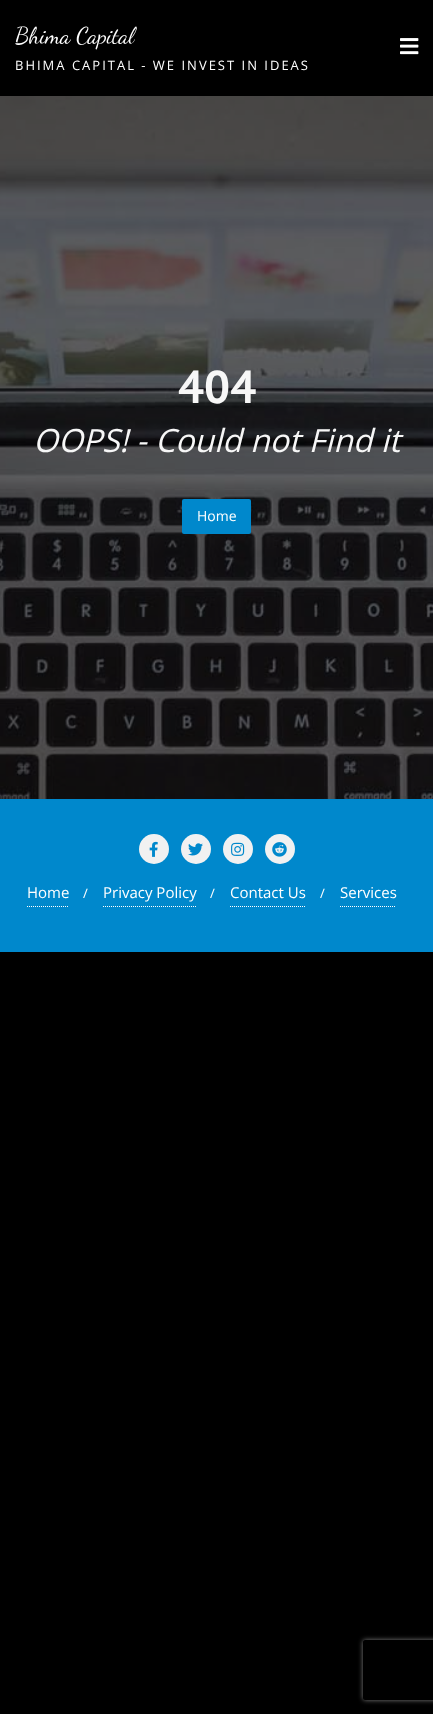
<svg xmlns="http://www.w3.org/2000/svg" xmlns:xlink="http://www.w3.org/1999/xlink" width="433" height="1714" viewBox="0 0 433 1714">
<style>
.cls-1{font:23px Dancing Script;fill:#ffffff}
.cls-2{font:13px Open Sans;letter-spacing:2px;fill:#ffffff}
.cls-3{font:bold 46px PT Sans;fill:#f7f7f7}
.cls-4{font:italic 32px Open Sans;fill:#f7f7f7}
.cls-5{font:14px Open Sans;fill:#ffffff}
.cls-6{font:15px Open Sans;fill:#ffffff}
.cls-7{font:13px Open Sans;fill:#ffffff}
</style>
<defs>
<clipPath id="clip1"><path d="M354 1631H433V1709H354ZM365 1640H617C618 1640 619 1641 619 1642V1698C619 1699 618 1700 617 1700H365C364 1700 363 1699 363 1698V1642C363 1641 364 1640 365 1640Z" clip-rule="evenodd"/></clipPath>
</defs>
<rect width="100%" height="100%" fill="#000000"/>
<image xlink:href="image0.png" x="400" y="38" width="19" height="17"/>
<image xlink:href="image1.png" x="0" y="96" width="433" height="703"/>
<rect fill="#0088cc" x="182" y="499" width="69" height="35" rx="2"/>
<rect fill="#0088cc" x="0" y="799" width="433" height="153"/>
<circle fill="#f1f1f1" cx="154" cy="849" r="15"/>
<image xlink:href="image2.png" x="149" y="841" width="9" height="16"/>
<circle fill="#f1f1f1" cx="196" cy="849" r="15"/>
<image xlink:href="image3.png" x="188" y="843" width="15" height="13"/>
<circle fill="#f1f1f1" cx="238" cy="849" r="15"/>
<image xlink:href="image4.png" x="231" y="842" width="14" height="14"/>
<circle fill="#f1f1f1" cx="280" cy="849" r="15"/>
<image xlink:href="image5.png" x="272" y="842" width="15" height="15"/>
<path fill="none" stroke="#ffffff" stroke-dasharray="1 1" d="M27 906.5H69"/>
<path fill="none" stroke="#ffffff" stroke-dasharray="1 1" d="M103 906.5H196"/>
<path fill="none" stroke="#ffffff" stroke-dasharray="1 1" d="M230 906.5H306"/>
<path fill="none" stroke="#ffffff" stroke-dasharray="1 1" d="M340 906.5H396"/>
<g clip-path="url(#clip1)">
<rect fill="#808080" filter="blur(2.5px)" x="363" y="1640" width="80" height="60" rx="2"/>
</g>
<text class="cls-1" x="15" y="43">Bhima Capital</text>
<text class="cls-2" x="15" y="70">BHIMA CAPITAL - WE INVEST IN IDEAS</text>
<text class="cls-3" x="178" y="403">404</text>
<text class="cls-4" x="33" y="452">OOPS! - Could not Find it</text>
<text class="cls-5" x="197" y="521">Home</text>
<text class="cls-6" x="27" y="898">Home</text>
<text class="cls-7" x="83" y="898">/</text>
<text class="cls-6" x="103" y="898">Privacy Policy</text>
<text class="cls-7" x="210" y="898">/</text>
<text class="cls-6" x="230" y="898">Contact Us</text>
<text class="cls-7" x="320" y="898">/</text>
<text class="cls-6" x="340" y="898">Services</text>
</svg>
